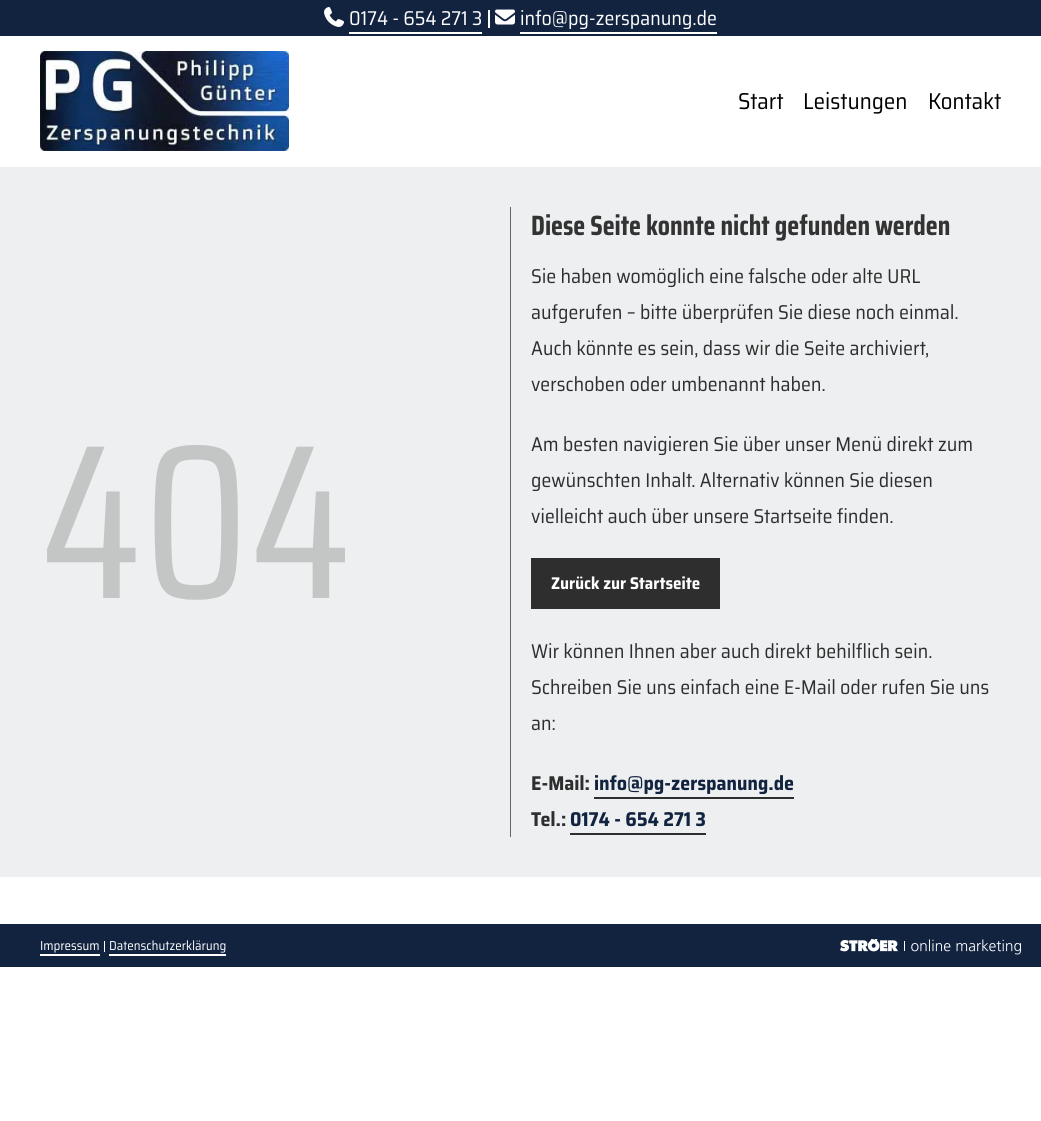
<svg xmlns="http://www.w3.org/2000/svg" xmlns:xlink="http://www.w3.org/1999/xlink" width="1041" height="1121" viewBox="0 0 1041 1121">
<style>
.cls-1{font:bold 28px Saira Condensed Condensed;fill:#333333}
.cls-2{font:220px Saira Condensed;fill:#c4c6c6}
</style>
<rect width="100%" height="100%" fill="#ffffff"/>
<rect fill="#122340" x="0" y="0" width="1041" height="36"/>
<image xlink:href="image0.png" x="324" y="7" width="20" height="20"/>
<image xlink:href="image1.png" x="350" y="11" width="131" height="15"/>
<rect fill="#ffffff" x="488" y="10" width="2" height="18"/>
<image xlink:href="image2.png" x="495" y="9" width="20" height="16"/>
<image xlink:href="image3.png" x="521" y="10" width="195" height="20"/>
<rect fill="#ffffff" x="349" y="32" width="133" height="2"/>
<rect fill="#ffffff" x="520" y="32" width="197" height="2"/>
<image xlink:href="image4.png" x="40" y="51" width="249" height="100"/>
<image xlink:href="image5.png" x="739" y="93" width="45" height="17"/>
<image xlink:href="image6.png" x="804" y="91" width="102" height="23"/>
<image xlink:href="image7.png" x="929" y="91" width="72" height="19"/>
<rect fill="#edeff0" x="0" y="167" width="1041" height="710"/>
<image xlink:href="image8.png" x="532" y="268" width="389" height="20"/>
<image xlink:href="image9.png" x="531" y="304" width="427" height="20"/>
<image xlink:href="image10.png" x="531" y="340" width="397" height="18"/>
<image xlink:href="image11.png" x="531" y="376" width="294" height="16"/>
<image xlink:href="image12.png" x="531" y="436" width="441" height="20"/>
<image xlink:href="image13.png" x="532" y="472" width="400" height="20"/>
<image xlink:href="image14.png" x="531" y="508" width="362" height="16"/>
<rect fill="#2e2e2e" x="531" y="558" width="189" height="51"/>
<image xlink:href="image15.png" x="551" y="576" width="149" height="14"/>
<image xlink:href="image16.png" x="531" y="643" width="401" height="16"/>
<image xlink:href="image17.png" x="532" y="679" width="457" height="16"/>
<image xlink:href="image18.png" x="531" y="719" width="24" height="12"/>
<image xlink:href="image19.png" x="532" y="775" width="57" height="16"/>
<image xlink:href="image20.png" x="595" y="775" width="199" height="20"/>
<rect fill="#2e2e2e" x="594" y="797" width="200" height="2"/>
<image xlink:href="image21.png" x="531" y="811" width="35" height="16"/>
<image xlink:href="image22.png" x="570" y="812" width="135" height="15"/>
<rect fill="#2e2e2e" x="570" y="833" width="136" height="2"/>
<rect fill="#666666" x="510" y="207" width="1" height="630"/>
<rect fill="#122340" x="0" y="924" width="1041" height="43"/>
<image xlink:href="image23.png" x="41" y="941" width="58" height="12"/>
<rect fill="#ffffff" x="104" y="941" width="1" height="11"/>
<rect fill="#ffffff" x="40" y="954" width="60" height="2"/>
<image xlink:href="image24.png" x="110" y="940" width="116" height="13"/>
<rect fill="#ffffff" x="109" y="954" width="117" height="2"/>
<image xlink:href="image25.png" x="840" y="939" width="181" height="16"/>
<text class="cls-1" x="531" y="235">Diese Seite konnte nicht gefunden werden</text>
<text class="cls-2" x="40" y="598">404</text>
</svg>
